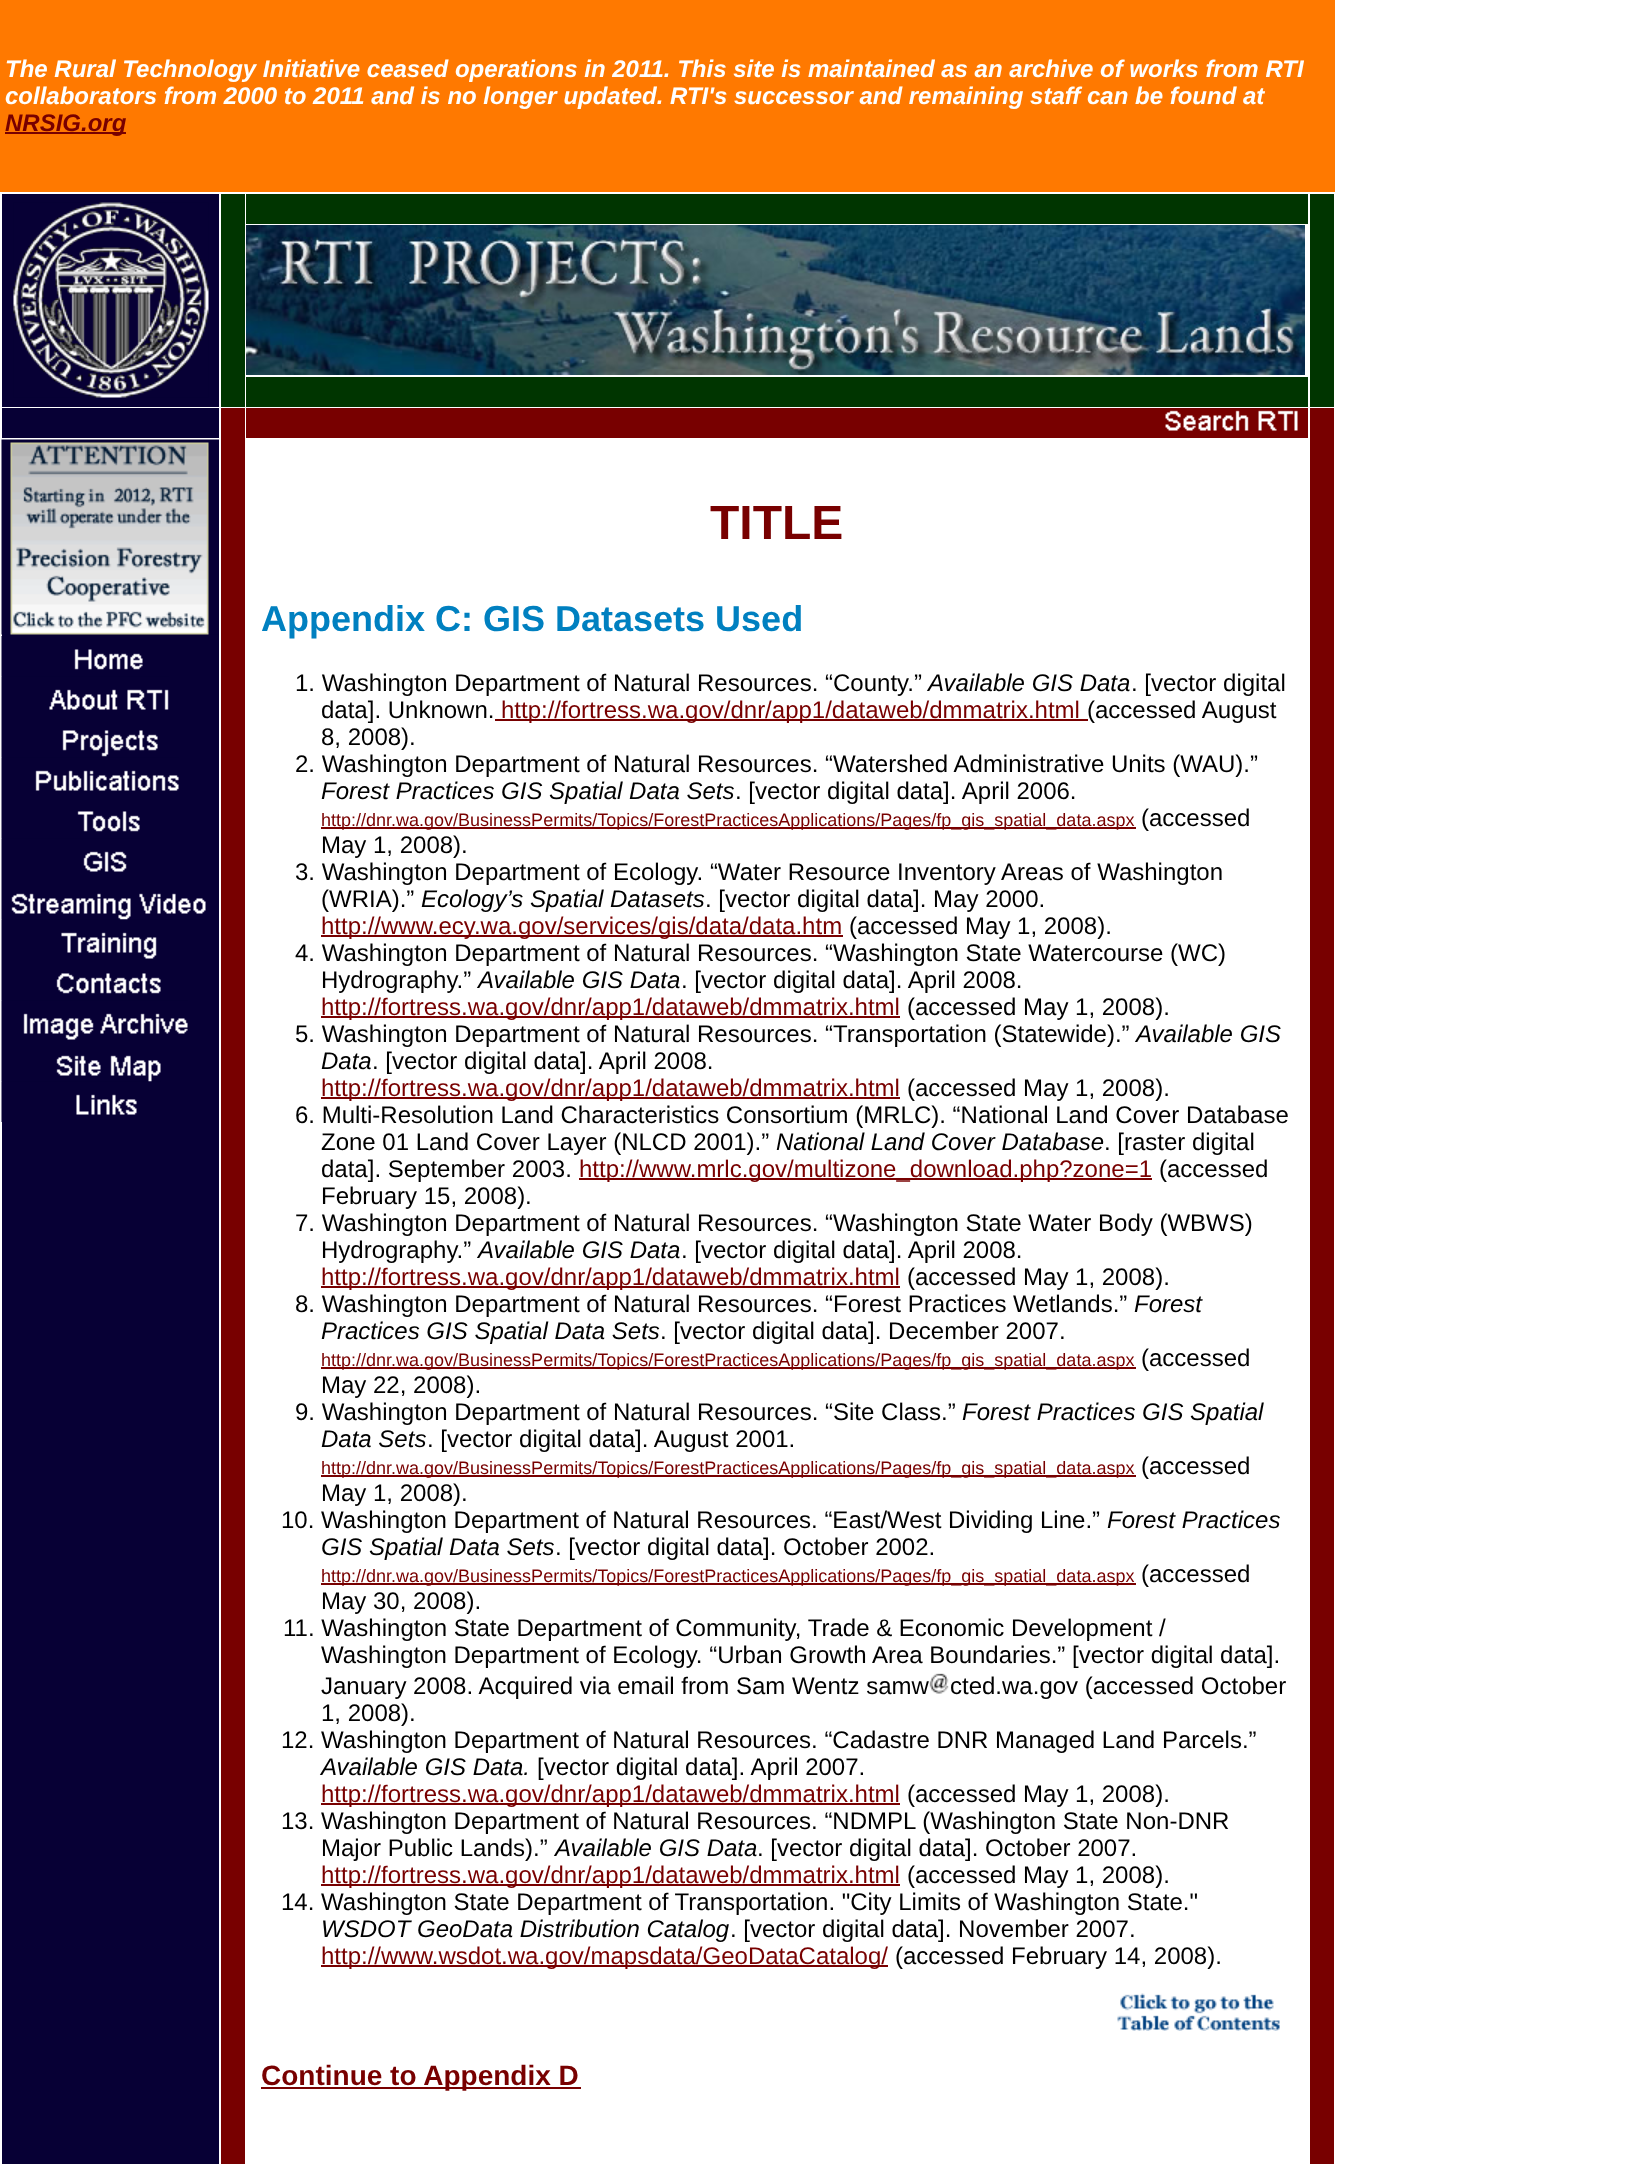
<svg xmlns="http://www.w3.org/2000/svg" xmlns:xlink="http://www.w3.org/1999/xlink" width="1631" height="2164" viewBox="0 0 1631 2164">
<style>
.cls-1{font:italic bold 24px Liberation Sans;fill:#ffffff}
.cls-2{font:italic bold 24px Liberation Sans;fill:#780000}
.cls-3{font:bold 48px Liberation Sans;fill:#780000}
.cls-4{font:bold 36px Liberation Sans;fill:#0080c0}
.cls-5{font:24px Liberation Sans;fill:#000000}
.cls-6{font:italic 24px Liberation Sans;fill:#000000}
.cls-7{font:24px Liberation Sans;fill:#780000}
.cls-8{font:18px Liberation Sans;fill:#780000}
.cls-9{font:bold 28px Liberation Sans;fill:#780000}
</style>
<rect width="100%" height="100%" fill="#ffffff"/>
<rect fill="#ff7900" x="0" y="0" width="1335" height="192"/>
<rect fill="#780000" x="5" y="132" width="121" height="2"/>
<rect fill="#070035" x="2" y="194" width="217" height="213"/>
<image xlink:href="image0.png" x="13" y="202" width="98" height="98"/>
<image xlink:href="image1.png" x="111" y="202" width="98" height="98"/>
<image xlink:href="image2.png" x="13" y="300" width="98" height="98"/>
<image xlink:href="image3.png" x="111" y="300" width="98" height="98"/>
<rect fill="#003500" x="221" y="194" width="24" height="213"/>
<rect fill="#003500" x="246" y="194" width="1062" height="30"/>
<rect fill="#003500" x="1310" y="194" width="24" height="213"/>
<image xlink:href="image4.png" x="246" y="225" width="1059" height="150"/>
<rect fill="#003500" x="246" y="377" width="1062" height="30"/>
<rect fill="#070035" x="2" y="408" width="217" height="30"/>
<rect fill="#780000" x="221" y="408" width="24" height="1756"/>
<rect fill="#780000" x="246" y="408" width="1062" height="30"/>
<image xlink:href="image5.png" x="1165" y="410" width="133" height="21"/>
<rect fill="#780000" x="1310" y="408" width="24" height="1756"/>
<rect fill="#070035" x="2" y="634" width="217" height="1530"/>
<image xlink:href="image6.png" x="1" y="439" width="218" height="196"/>
<image xlink:href="image7.png" x="1" y="636" width="142" height="41"/>
<image xlink:href="image8.png" x="1" y="676" width="168" height="41"/>
<image xlink:href="image9.png" x="1" y="717" width="157" height="41"/>
<image xlink:href="image10.png" x="1" y="757" width="178" height="41"/>
<image xlink:href="image11.png" x="1" y="798" width="139" height="41"/>
<image xlink:href="image12.png" x="1" y="838" width="126" height="41"/>
<image xlink:href="image13.png" x="1" y="879" width="205" height="41"/>
<image xlink:href="image14.png" x="1" y="919" width="156" height="41"/>
<image xlink:href="image15.png" x="1" y="960" width="160" height="41"/>
<image xlink:href="image16.png" x="1" y="1000" width="187" height="41"/>
<image xlink:href="image17.png" x="1" y="1041" width="160" height="41"/>
<image xlink:href="image18.png" x="1" y="1081" width="151" height="41"/>
<rect fill="#780000" x="495" y="719" width="593" height="2"/>
<rect fill="#780000" x="321" y="827" width="815" height="2"/>
<rect fill="#780000" x="321" y="935" width="522" height="2"/>
<rect fill="#780000" x="321" y="1016" width="579" height="2"/>
<rect fill="#780000" x="321" y="1097" width="579" height="2"/>
<rect fill="#780000" x="579" y="1178" width="573" height="2"/>
<rect fill="#780000" x="321" y="1286" width="579" height="2"/>
<rect fill="#780000" x="321" y="1367" width="815" height="2"/>
<rect fill="#780000" x="321" y="1475" width="815" height="2"/>
<rect fill="#780000" x="321" y="1583" width="815" height="2"/>
<rect fill="#780000" x="321" y="1803" width="579" height="2"/>
<rect fill="#780000" x="321" y="1884" width="579" height="2"/>
<rect fill="#780000" x="321" y="1965" width="567" height="2"/>
<image xlink:href="image20.png" x="1117" y="1993" width="163" height="38"/>
<rect fill="#780000" x="261" y="2087" width="320" height="2"/>
<text class="cls-1"><tspan x="5" y="77">The Rural Technology Initiative ceased operations in 2011. This site is maintained as an archive of works from RTI</tspan><tspan x="5" y="104">collaborators from 2000 to 2011 and is no longer updated. RTI's successor and remaining staff can be found at</tspan></text>
<text class="cls-2" x="5" y="131">NRSIG.org</text>
<text class="cls-3" x="710" y="539">TITLE</text>
<text class="cls-4" x="261" y="631">Appendix C: GIS Datasets Used</text>
<text class="cls-5" x="295" y="691">1. Washington Department of Natural Resources. “County.”</text>
<text class="cls-6" x="928" y="691">Available GIS Data</text>
<text class="cls-5" x="1131" y="691">. [vector digital</text>
<text class="cls-5" x="321" y="718">data]. Unknown.</text>
<text class="cls-7" x="501" y="718">http://fortress.wa.gov/dnr/app1/dataweb/dmmatrix.html</text>
<text class="cls-5" x="1087" y="718">(accessed August</text>
<text class="cls-5" x="321" y="745">8, 2008).</text>
<text class="cls-5" x="295" y="772">2. Washington Department of Natural Resources. “Watershed Administrative Units (WAU).”</text>
<text class="cls-6" x="321" y="799">Forest Practices GIS Spatial Data Sets</text>
<text class="cls-5" x="735" y="799">. [vector digital data]. April 2006.</text>
<text class="cls-8" x="321" y="826">http://dnr.wa.gov/BusinessPermits/Topics/ForestPracticesApplications/Pages/fp_gis_spatial_data.aspx</text>
<text class="cls-5" x="1141" y="826">(accessed</text>
<text class="cls-5" x="321" y="853">May 1, 2008).</text>
<text class="cls-5" x="295" y="880">3. Washington Department of Ecology. “Water Resource Inventory Areas of Washington</text>
<text class="cls-5" x="321" y="907">(WRIA).”</text>
<text class="cls-6" x="421" y="907">Ecology’s Spatial Datasets</text>
<text class="cls-5" x="705" y="907">. [vector digital data]. May 2000.</text>
<text class="cls-7" x="321" y="934">http://www.ecy.wa.gov/services/gis/data/data.htm</text>
<text class="cls-5" x="849" y="934">(accessed May 1, 2008).</text>
<text class="cls-5" x="295" y="961">4. Washington Department of Natural Resources. “Washington State Watercourse (WC)</text>
<text class="cls-5" x="321" y="988">Hydrography.”</text>
<text class="cls-6" x="478" y="988">Available GIS Data</text>
<text class="cls-5" x="681" y="988">. [vector digital data]. April 2008.</text>
<text class="cls-7" x="321" y="1015">http://fortress.wa.gov/dnr/app1/dataweb/dmmatrix.html</text>
<text class="cls-5" x="907" y="1015">(accessed May 1, 2008).</text>
<text class="cls-5" x="295" y="1042">5. Washington Department of Natural Resources. “Transportation (Statewide).”</text>
<text class="cls-6" x="1136" y="1042">Available GIS</text>
<text class="cls-6" x="321" y="1069">Data</text>
<text class="cls-5" x="372" y="1069">. [vector digital data]. April 2008.</text>
<text class="cls-7" x="321" y="1096">http://fortress.wa.gov/dnr/app1/dataweb/dmmatrix.html</text>
<text class="cls-5" x="907" y="1096">(accessed May 1, 2008).</text>
<text class="cls-5" x="295" y="1123">6. Multi‐Resolution Land Characteristics Consortium (MRLC). “National Land Cover Database</text>
<text class="cls-5" x="321" y="1150">Zone 01 Land Cover Layer (NLCD 2001).”</text>
<text class="cls-6" x="776" y="1150">National Land Cover Database</text>
<text class="cls-5" x="1104" y="1150">. [raster digital</text>
<text class="cls-5" x="321" y="1177">data]. September 2003.</text>
<text class="cls-7" x="579" y="1177">http://www.mrlc.gov/multizone_download.php?zone=1</text>
<text class="cls-5" x="1159" y="1177">(accessed</text>
<text class="cls-5" x="321" y="1204">February 15, 2008).</text>
<text class="cls-5" x="295" y="1231">7. Washington Department of Natural Resources. “Washington State Water Body (WBWS)</text>
<text class="cls-5" x="321" y="1258">Hydrography.”</text>
<text class="cls-6" x="478" y="1258">Available GIS Data</text>
<text class="cls-5" x="681" y="1258">. [vector digital data]. April 2008.</text>
<text class="cls-7" x="321" y="1285">http://fortress.wa.gov/dnr/app1/dataweb/dmmatrix.html</text>
<text class="cls-5" x="907" y="1285">(accessed May 1, 2008).</text>
<text class="cls-5" x="295" y="1312">8. Washington Department of Natural Resources. “Forest Practices Wetlands.”</text>
<text class="cls-6" x="1134" y="1312">Forest</text>
<text class="cls-6" x="321" y="1339">Practices GIS Spatial Data Sets</text>
<text class="cls-5" x="660" y="1339">. [vector digital data]. December 2007.</text>
<text class="cls-8" x="321" y="1366">http://dnr.wa.gov/BusinessPermits/Topics/ForestPracticesApplications/Pages/fp_gis_spatial_data.aspx</text>
<text class="cls-5" x="1141" y="1366">(accessed</text>
<text class="cls-5" x="321" y="1393">May 22, 2008).</text>
<text class="cls-5" x="295" y="1420">9. Washington Department of Natural Resources. “Site Class.”</text>
<text class="cls-6" x="962" y="1420">Forest Practices GIS Spatial</text>
<text class="cls-6" x="321" y="1447">Data Sets</text>
<text class="cls-5" x="427" y="1447">. [vector digital data]. August 2001.</text>
<text class="cls-8" x="321" y="1474">http://dnr.wa.gov/BusinessPermits/Topics/ForestPracticesApplications/Pages/fp_gis_spatial_data.aspx</text>
<text class="cls-5" x="1141" y="1474">(accessed</text>
<text class="cls-5" x="321" y="1501">May 1, 2008).</text>
<text class="cls-5" x="281" y="1528">10. Washington Department of Natural Resources. “East/West Dividing Line.”</text>
<text class="cls-6" x="1107" y="1528">Forest Practices</text>
<text class="cls-6" x="321" y="1555">GIS Spatial Data Sets</text>
<text class="cls-5" x="555" y="1555">. [vector digital data]. October 2002.</text>
<text class="cls-8" x="321" y="1582">http://dnr.wa.gov/BusinessPermits/Topics/ForestPracticesApplications/Pages/fp_gis_spatial_data.aspx</text>
<text class="cls-5" x="1141" y="1582">(accessed</text>
<text class="cls-5" x="321" y="1609">May 30, 2008).</text>
<text class="cls-5" x="283" y="1636">11. Washington State Department of Community, Trade &amp; Economic Development /</text>
<text class="cls-5"><tspan x="321" y="1663">Washington Department of Ecology. “Urban Growth Area Boundaries.” [vector digital data].</tspan><tspan x="321" y="1694">January 2008. Acquired via email from Sam Wentz samw</tspan></text>
<image xlink:href="image19.png" x="929" y="1673" width="20" height="21"/>
<text class="cls-5" x="950" y="1694">cted.wa.gov (accessed October</text>
<text class="cls-5" x="321" y="1721">1, 2008).</text>
<text class="cls-5" x="281" y="1748">12. Washington Department of Natural Resources. “Cadastre DNR Managed Land Parcels.”</text>
<text class="cls-6" x="321" y="1775">Available GIS Data.</text>
<text class="cls-5" x="537" y="1775">[vector digital data]. April 2007.</text>
<text class="cls-7" x="321" y="1802">http://fortress.wa.gov/dnr/app1/dataweb/dmmatrix.html</text>
<text class="cls-5" x="907" y="1802">(accessed May 1, 2008).</text>
<text class="cls-5" x="281" y="1829">13. Washington Department of Natural Resources. “NDMPL (Washington State Non‐DNR</text>
<text class="cls-5" x="321" y="1856">Major Public Lands).”</text>
<text class="cls-6" x="555" y="1856">Available GIS Data</text>
<text class="cls-5" x="757" y="1856">. [vector digital data]. October 2007.</text>
<text class="cls-7" x="321" y="1883">http://fortress.wa.gov/dnr/app1/dataweb/dmmatrix.html</text>
<text class="cls-5" x="907" y="1883">(accessed May 1, 2008).</text>
<text class="cls-5" x="281" y="1910">14. Washington State Department of Transportation. "City Limits of Washington State."</text>
<text class="cls-6" x="321" y="1937">WSDOT GeoData Distribution Catalog</text>
<text class="cls-5" x="730" y="1937">. [vector digital data]. November 2007.</text>
<text class="cls-7" x="321" y="1964">http://www.wsdot.wa.gov/mapsdata/GeoDataCatalog/</text>
<text class="cls-5" x="895" y="1964">(accessed February 14, 2008).</text>
<text class="cls-9" x="261" y="2085">Continue to Appendix D</text>
</svg>
